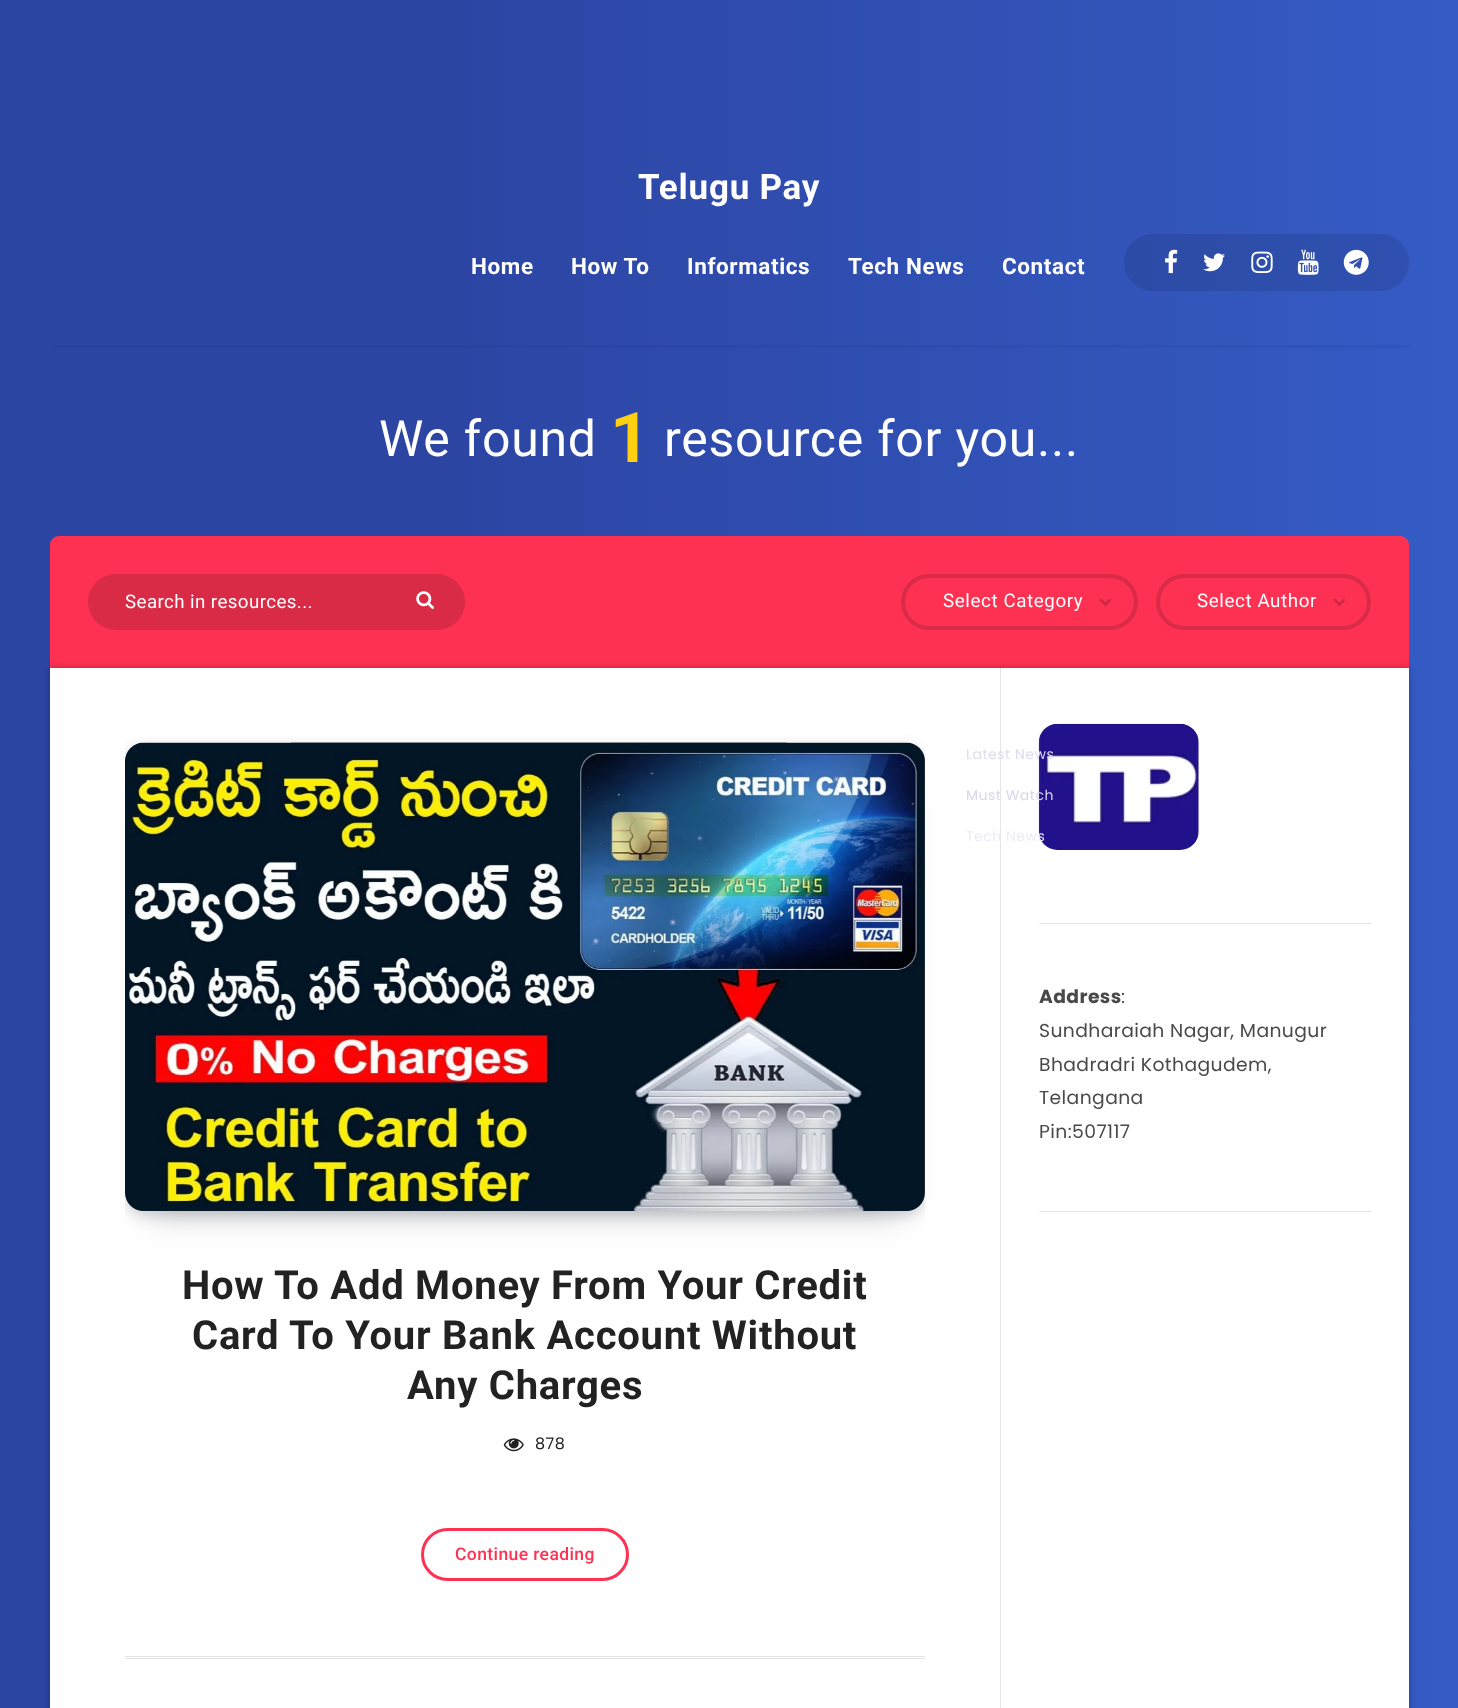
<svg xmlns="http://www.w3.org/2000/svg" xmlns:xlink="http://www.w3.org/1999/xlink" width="1458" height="1708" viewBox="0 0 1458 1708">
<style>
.cls-1{font:bold 35px Roboto;letter-spacing:0.75px;fill:#ffffff}
.cls-2{font:bold 22.5px Roboto;letter-spacing:0.6px;fill:#ffffff}
.cls-3{font:50px Roboto;letter-spacing:0.75px;fill:#ffffff}
.cls-4{font:bold 70px Roboto;letter-spacing:0.75px;fill:#ffd012}
.cls-5{font:18.75px Roboto;letter-spacing:0.4px;fill:#ffffff}
.cls-6{font:18.75px Roboto;letter-spacing:0.6px;fill:#ffffff}
.cls-7{font:14px Poppins;letter-spacing:0.5px;fill:#dedced}
.cls-8{font:14px Poppins;letter-spacing:0.5px;fill:#d9d6eb}
.cls-9{font:14px Poppins;letter-spacing:0.5px;fill:#ecebf5}
.cls-10{font:bold 18.75px Poppins;letter-spacing:0.4px;fill:#494949}
.cls-11{font:18.75px Poppins;letter-spacing:0.4px;fill:#494949}
.cls-12{font:bold 40px Roboto;letter-spacing:0.75px;fill:#222222}
.cls-13{font:16px Poppins;letter-spacing:0.4px;fill:#222222}
.cls-14{font:500 17.5px Roboto;letter-spacing:0.4px;fill:#ff3152}
</style>
<defs>
<linearGradient id="g1" gradientUnits="userSpaceOnUse" x1="0" y1="854" x2="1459" y2="854"><stop offset="0.3" stop-color="#2c45a3"/><stop offset="1" stop-color="#355bc5"/></linearGradient>
<linearGradient id="g2" gradientUnits="userSpaceOnUse" x1="0" y1="854" x2="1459" y2="854"><stop offset="0.3" stop-color="#2a429b"/><stop offset="1" stop-color="#3256bb"/></linearGradient>
<clipPath id="clip1"><rect x="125" y="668" width="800" height="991"/></clipPath>
</defs>
<rect width="100%" height="100%" fill="#ffffff"/>
<rect fill="url(#g1)" x="0" y="0" width="1458" height="1708"/>
<rect fill="url(#g2)" x="50" y="345" width="1359" height="3"/>
<rect fill="#000000" fill-opacity="0.1" x="1124" y="234" width="285" height="57" rx="28.5"/>
<image xlink:href="image0.png" x="1165" y="249" width="13" height="25"/>
<image xlink:href="image1.png" x="1203" y="253" width="22" height="19"/>
<image xlink:href="image2.png" x="1251" y="251" width="22" height="22"/>
<image xlink:href="image3.png" x="1297" y="249" width="22" height="26"/>
<image xlink:href="image4.png" x="1343" y="249" width="26" height="26"/>
<path fill="#ff3152" d="M59 536H1400C1405 536 1409 540 1409 545V668H50V545C50 540 54 536 59 536Z"/>
<rect fill="#d92a46" x="88" y="574" width="377" height="56" rx="28"/>
<image xlink:href="image5.png" x="416" y="591" width="18" height="18"/>
<rect fill="none" stroke="#d92a46" stroke-width="4" x="903" y="576" width="233" height="52" rx="26"/>
<path fill="#cc2742" d="M1111.5 600L1105.5 606.5V602.5L1110 598.5Z"/>
<path fill="#000000" fill-opacity="0.2" d="M1105.5 606.5L1099.5 600L1101 598.5L1105.5 602.5Z"/>
<rect fill="none" stroke="#d92a46" stroke-width="4" x="1158" y="576" width="211" height="52" rx="26"/>
<path fill="#cc2742" d="M1345.5 600L1339.5 606.5V602.5L1344 598.5Z"/>
<path fill="#000000" fill-opacity="0.2" d="M1339.5 606.5L1333.5 600L1335 598.5L1339.5 602.5Z"/>
<rect fill="#000000" fill-opacity="0.3" filter="blur(3px)" x="50" y="668" width="1359" height="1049"/>
<rect fill="#ffffff" x="50" y="668" width="1359" height="1040"/>
<rect fill="#e5e5e5" x="1039" y="923" width="332" height="1"/>
<image xlink:href="image6.png" x="1038" y="723" width="161" height="127"/>
<rect fill="#e5e5e5" x="1039" y="1211" width="332" height="1"/>
<rect fill="#e5e5e5" x="1000" y="668" width="1" height="1040"/>
<rect fill="#e5e5e5" x="125" y="1656" width="800" height="1"/>
<rect fill="#070a19" fill-opacity="0.2" filter="blur(17px)" x="150" y="795" width="750" height="419"/>
<g clip-path="url(#clip1)">
<rect fill="#070a19" fill-opacity="0.2" filter="blur(7.5px)" x="126" y="748" width="798" height="466" rx="18"/>
</g>
<image xlink:href="image7.png" x="125" y="742" width="800" height="469"/>
<image xlink:href="image8.png" x="503" y="1438" width="21" height="14"/>
<rect fill="none" stroke="#ff3152" stroke-width="3" x="422.5" y="1529.5" width="205" height="50" rx="25"/>
<rect fill="#e5e5e5" x="125" y="1658" width="800" height="1"/>
<text class="cls-1" x="638" y="199">Telugu Pay</text>
<text class="cls-2" x="471" y="274">Home</text>
<text class="cls-2" x="571" y="274">How To</text>
<text class="cls-2" x="687" y="274">Informatics</text>
<text class="cls-2" x="848" y="274">Tech News</text>
<text class="cls-2" x="1002" y="274">Contact</text>
<text class="cls-3" x="379" y="456">We found</text>
<text class="cls-4" x="610" y="462">1</text>
<text class="cls-3" x="664" y="456">resource for you...</text>
<text class="cls-5" x="125" y="608">Search in resources...</text>
<text class="cls-6" x="943" y="607">Select Category</text>
<text class="cls-7" x="966" y="759">Latest News</text>
<text class="cls-8" x="966" y="800">Must Watch</text>
<text class="cls-9" x="966" y="841">Tech News</text>
<text class="cls-6" x="1197" y="607">Select Author</text>
<text class="cls-10" x="1039" y="1003">Address</text>
<text class="cls-11" x="1121" y="1003">:</text>
<text class="cls-11"><tspan x="1039" y="1037">Sundharaiah Nagar, Manugur</tspan><tspan x="1039" y="1071">Bhadradri Kothagudem,</tspan><tspan x="1039" y="1104">Telangana</tspan><tspan x="1039" y="1138">Pin:507117</tspan></text>
<text class="cls-12" x="182" y="1299">How To Add Money From Your Credit</text>
<text class="cls-12" x="192" y="1349">Card To Your Bank Account Without</text>
<text class="cls-12" x="407" y="1399">Any Charges</text>
<text class="cls-13" x="535" y="1449">878</text>
<text class="cls-14" x="455" y="1560">Continue reading</text>
</svg>
